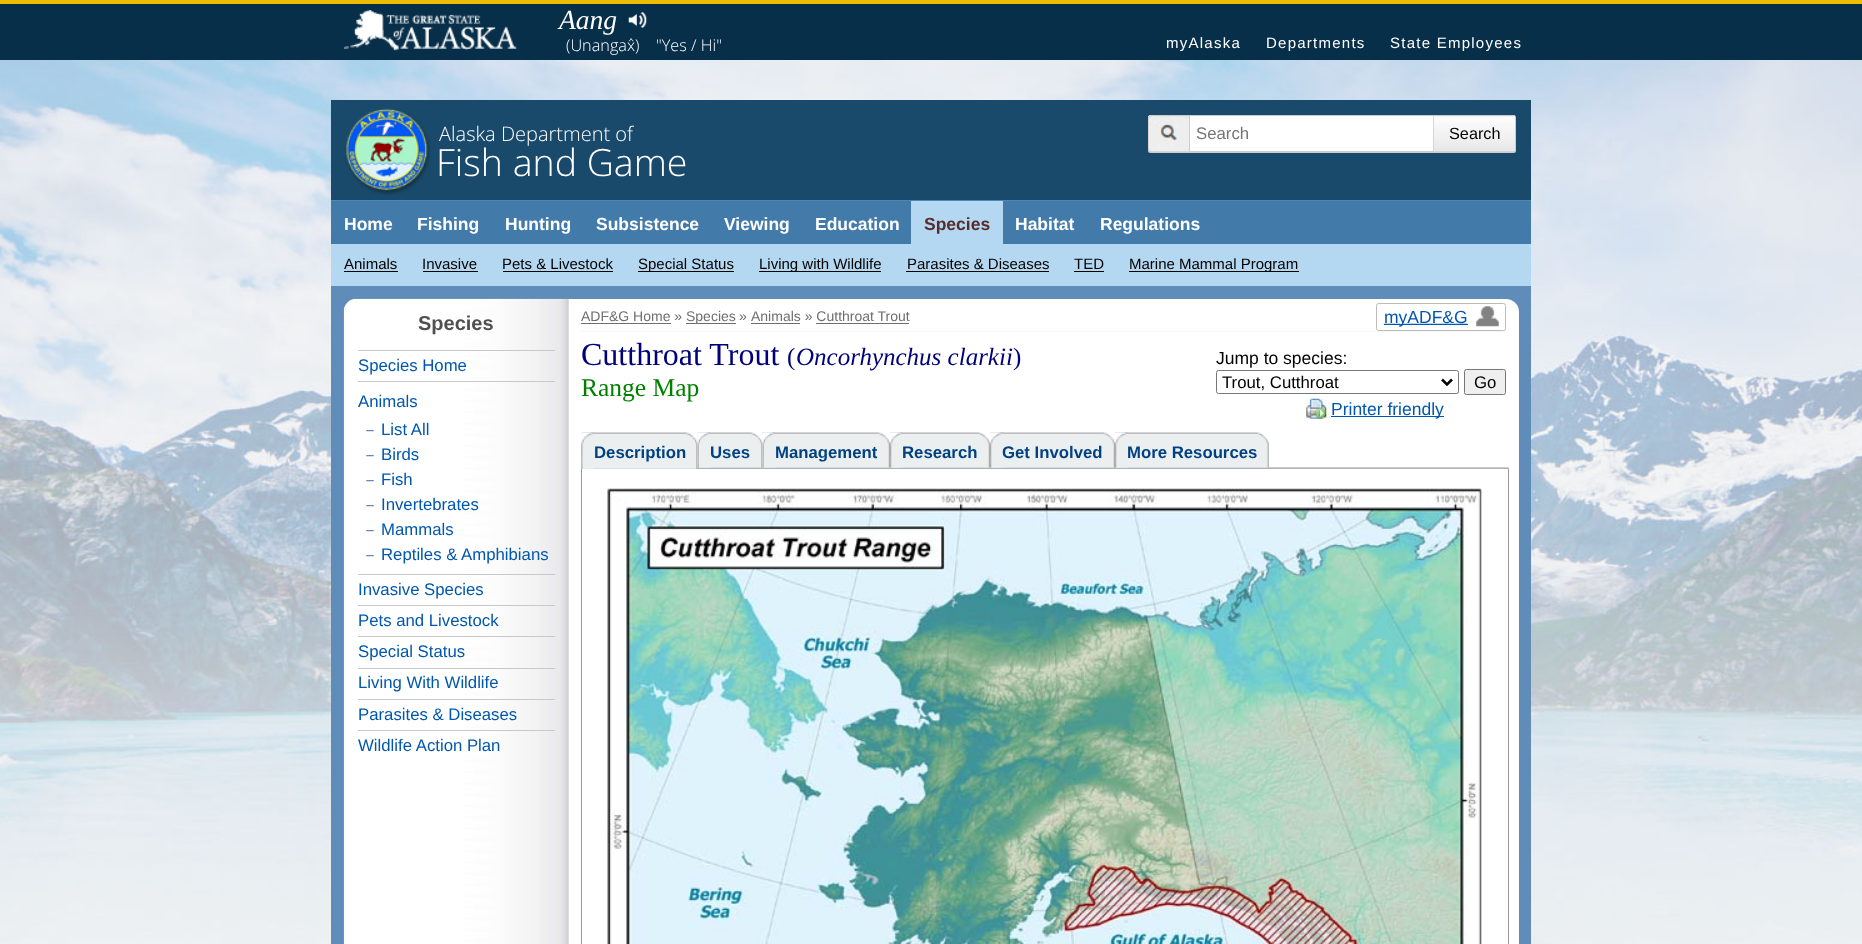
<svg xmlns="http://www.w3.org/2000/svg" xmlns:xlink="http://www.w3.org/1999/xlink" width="1862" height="944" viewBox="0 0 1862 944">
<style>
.cls-1{font:italic 27.5px Liberation Serif;fill:#ffffff}
.cls-2{font:300 16.25px Open Sans;fill:#ffffff}
.cls-3{font:15px Liberation Sans;letter-spacing:1.25px;fill:#ffffff}
.cls-4{font:300 20px Open Sans;fill:#ffffff}
.cls-5{font:300 37.5px Open Sans;fill:#ffffff}
.cls-6{font:16.75px Liberation Sans;fill:#757575}
.cls-7{font:16.25px Liberation Sans;fill:#000000}
.cls-8{font:bold 17.5px Liberation Sans;fill:#592d2d}
.cls-9{font:15px Liberation Sans;fill:#000000}
.cls-10{font:bold 17.5px Liberation Sans;fill:#ffffff}
.cls-11{font:bold 20px Liberation Sans;fill:#505050}
.cls-12{font:16.75px Liberation Sans;fill:#0057ae}
.cls-13{font:14px Liberation Sans;fill:#6e6e6e}
.cls-14{font:17.5px Liberation Sans;fill:#0057ae}
.cls-15{font:32px Liberation Serif;fill:#00007c}
.cls-16{font:25px Liberation Serif;fill:#00007c}
.cls-17{font:italic 25px Liberation Serif;fill:#00007c}
.cls-18{font:25.5px Liberation Serif;fill:#008000}
.cls-19{font:17.5px Liberation Sans;fill:#000000}
.cls-20{font:16.75px Liberation Sans;fill:#000000}
.cls-21{font:bold 16.75px Liberation Sans;fill:#004182}
</style>
<rect width="100%" height="100%" fill="#ffffff"/>
<image xlink:href="image0.png" x="0" y="60" width="1862" height="884"/>
<rect fill="#072f49" x="0" y="4" width="1862" height="56"/>
<rect fill="#edbd03" x="0" y="0" width="1862" height="4"/>
<image xlink:href="image1.png" x="628" y="11" width="19" height="17"/>
<image xlink:href="image2.png" x="343" y="10" width="174" height="41"/>
<rect fill="#194a6b" x="331" y="100" width="1200" height="100"/>
<image xlink:href="image3.png" x="345" y="108" width="85" height="87"/>
<rect fill="#cccccc" x="1148" y="115" width="368" height="38" rx="2.5"/>
<rect fill="#cccccc" x="1149" y="115" width="366" height="1"/>
<rect fill="#cccccc" x="1148" y="116" width="1" height="35"/>
<image xlink:href="image4.png" x="1148" y="116" width="42" height="36"/>
<rect fill="#cccccc" x="1189" y="116" width="1" height="35"/>
<rect fill="#ffffff" x="1190" y="116" width="243" height="35"/>
<image xlink:href="image5.png" x="1433" y="116" width="82" height="36"/>
<rect fill="#427baa" x="331" y="201" width="1200" height="43"/>
<rect fill="#4989b3" x="331" y="200" width="1200" height="1"/>
<rect fill="#b5d8f2" x="911" y="201" width="92" height="43"/>
<rect fill="#b5d8f2" x="331" y="244" width="1200" height="42"/>
<rect fill="#000000" x="344" y="271" width="54" height="1"/>
<rect fill="#000000" x="423" y="271" width="55" height="1"/>
<rect fill="#000000" x="503" y="271" width="110" height="1"/>
<rect fill="#000000" x="638" y="271" width="96" height="1"/>
<rect fill="#000000" x="759" y="271" width="122" height="1"/>
<rect fill="#000000" x="906" y="271" width="143" height="1"/>
<rect fill="#000000" x="1074" y="271" width="30" height="1"/>
<rect fill="#000000" x="1129" y="271" width="170" height="1"/>
<rect fill="#608cb9" x="331" y="286" width="1200" height="658"/>
<rect fill="#ffffff" x="344" y="299" width="1175" height="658" rx="13"/>
<image xlink:href="image6.png" x="343" y="298" width="226" height="646"/>
<rect fill="#c7c8ca" x="358" y="350" width="197" height="1"/>
<rect fill="#c7c8ca" x="358" y="381" width="197" height="1"/>
<image xlink:href="image7.png" x="366" y="430" width="8" height="2"/>
<image xlink:href="image7.png" x="366" y="455" width="8" height="2"/>
<image xlink:href="image7.png" x="366" y="480" width="8" height="2"/>
<image xlink:href="image7.png" x="366" y="505" width="8" height="2"/>
<image xlink:href="image7.png" x="366" y="530" width="8" height="2"/>
<image xlink:href="image7.png" x="366" y="555" width="8" height="2"/>
<rect fill="#c7c8ca" x="358" y="574" width="197" height="1"/>
<rect fill="#c7c8ca" x="358" y="605" width="197" height="1"/>
<rect fill="#c7c8ca" x="358" y="636" width="197" height="1"/>
<rect fill="#c7c8ca" x="358" y="668" width="197" height="1"/>
<rect fill="#c7c8ca" x="358" y="699" width="197" height="1"/>
<rect fill="#c7c8ca" x="358" y="730" width="197" height="1"/>
<rect fill="#f3f7f9" x="581" y="331" width="925" height="1"/>
<rect fill="#6e6e6e" x="581" y="323" width="90" height="1"/>
<rect fill="#6e6e6e" x="686" y="323" width="50" height="1"/>
<rect fill="#6e6e6e" x="751" y="323" width="49" height="1"/>
<rect fill="#6e6e6e" x="816" y="323" width="93" height="1"/>
<rect fill="none" stroke="#bcbcbc" x="1376.5" y="303.5" width="129" height="27" rx="2"/>
<image xlink:href="image8.png" x="1383" y="306" width="116" height="21"/>
<rect fill="#0057ae" x="1400" y="324" width="68" height="1"/>
<rect fill="none" stroke="#767676" x="1216.5" y="370.5" width="242" height="23" rx="2"/>
<path fill="none" stroke="#000000" stroke-width="2.5" d="M1442 379.5L1447 384.5L1452 379.5"/>
<rect fill="#efefef" stroke="#767676" x="1464.5" y="369.5" width="41" height="25" rx="2"/>
<image xlink:href="image9.png" x="1306" y="398" width="21" height="21"/>
<rect fill="#0057ae" x="1331" y="416" width="113" height="1"/>
<image xlink:href="image10.png" x="581" y="467" width="928" height="2"/>
<image xlink:href="image11.png" x="581" y="432" width="117" height="37"/>
<image xlink:href="image12.png" x="581" y="432" width="13" height="37"/>
<image xlink:href="image13.png" x="697" y="432" width="66" height="36"/>
<image xlink:href="image14.png" x="697" y="432" width="13" height="36"/>
<image xlink:href="image15.png" x="762" y="432" width="128" height="36"/>
<image xlink:href="image16.png" x="762" y="432" width="13" height="36"/>
<image xlink:href="image17.png" x="890" y="432" width="100" height="36"/>
<image xlink:href="image18.png" x="890" y="432" width="13" height="36"/>
<image xlink:href="image19.png" x="990" y="432" width="125" height="36"/>
<image xlink:href="image20.png" x="990" y="432" width="13" height="36"/>
<image xlink:href="image21.png" x="1115" y="432" width="154" height="36"/>
<image xlink:href="image20.png" x="1115" y="432" width="13" height="36"/>
<rect fill="#999999" x="1508" y="469" width="1" height="475"/>
<rect fill="#999999" x="581" y="469" width="1" height="475"/>
<image xlink:href="image22.png" x="607" y="488" width="875" height="456"/>
<text class="cls-1" x="559" y="29">Aang</text>
<text class="cls-2" x="566" y="51">(Unangax̂)</text>
<text class="cls-2" x="656" y="51">"Yes / Hi"</text>
<text class="cls-3" x="1166" y="48">myAlaska</text>
<text class="cls-3" x="1266" y="48">Departments</text>
<text class="cls-3" x="1390" y="48">State Employees</text>
<text class="cls-4" x="439" y="141">Alaska Department of</text>
<text class="cls-5" x="436" y="176">Fish and Game</text>
<text class="cls-6" x="1196" y="139">Search</text>
<text class="cls-7" x="1449" y="139">Search</text>
<text class="cls-8" x="924" y="230">Species</text>
<text class="cls-9" x="344" y="269">Animals</text>
<text class="cls-9" x="422" y="269">Invasive</text>
<text class="cls-9" x="502" y="269">Pets &amp; Livestock</text>
<text class="cls-9" x="638" y="269">Special Status</text>
<text class="cls-9" x="759" y="269">Living with Wildlife</text>
<text class="cls-9" x="907" y="269">Parasites &amp; Diseases</text>
<text class="cls-9" x="1074" y="269">TED</text>
<text class="cls-9" x="1129" y="269">Marine Mammal Program</text>
<text class="cls-10" x="344" y="230">Home</text>
<text class="cls-10" x="417" y="230">Fishing</text>
<text class="cls-10" x="505" y="230">Hunting</text>
<text class="cls-10" x="596" y="230">Subsistence</text>
<text class="cls-10" x="724" y="230">Viewing</text>
<text class="cls-10" x="815" y="230">Education</text>
<text class="cls-10" x="1015" y="230">Habitat</text>
<text class="cls-10" x="1100" y="230">Regulations</text>
<text class="cls-11" x="418" y="330">Species</text>
<text class="cls-12" x="358" y="371">Species Home</text>
<text class="cls-12" x="358" y="407">Animals</text>
<text class="cls-12"><tspan x="381" y="435">List All</tspan><tspan x="381" y="460">Birds</tspan><tspan x="381" y="485">Fish</tspan><tspan x="381" y="510">Invertebrates</tspan><tspan x="381" y="535">Mammals</tspan><tspan x="381" y="560">Reptiles &amp; Amphibians</tspan></text>
<text class="cls-12"><tspan x="358" y="595">Invasive Species</tspan><tspan x="358" y="626">Pets and Livestock</tspan><tspan x="358" y="657">Special Status</tspan><tspan x="358" y="688">Living With Wildlife</tspan><tspan x="358" y="720">Parasites &amp; Diseases</tspan><tspan x="358" y="751">Wildlife Action Plan</tspan></text>
<text class="cls-13" x="581" y="321">ADF&amp;G Home »</text>
<text class="cls-13" x="686" y="321">Species</text>
<text class="cls-13" x="739" y="321">»</text>
<text class="cls-13" x="751" y="321">Animals » Cutthroat Trout</text>
<text class="cls-14" x="1384" y="323">myADF&amp;G</text>
<text class="cls-15" x="581" y="365">Cutthroat Trout</text>
<text class="cls-16" x="787" y="365">(</text>
<text class="cls-17" x="796" y="365">Oncorhynchus clarkii</text>
<text class="cls-16" x="1013" y="365">)</text>
<text class="cls-18" x="581" y="396">Range Map</text>
<text class="cls-19" x="1216" y="364">Jump to species:</text>
<text class="cls-20" x="1222" y="388">Trout, Cutthroat</text>
<text class="cls-20" x="1474" y="388">Go</text>
<text class="cls-14" x="1331" y="415">Printer friendly</text>
<text class="cls-21" x="594" y="458">Description</text>
<text class="cls-21" x="710" y="458">Uses</text>
<text class="cls-21" x="775" y="458">Management</text>
<text class="cls-21" x="902" y="458">Research</text>
<text class="cls-21" x="1002" y="458">Get Involved</text>
<text class="cls-21" x="1127" y="458">More Resources</text>
</svg>
